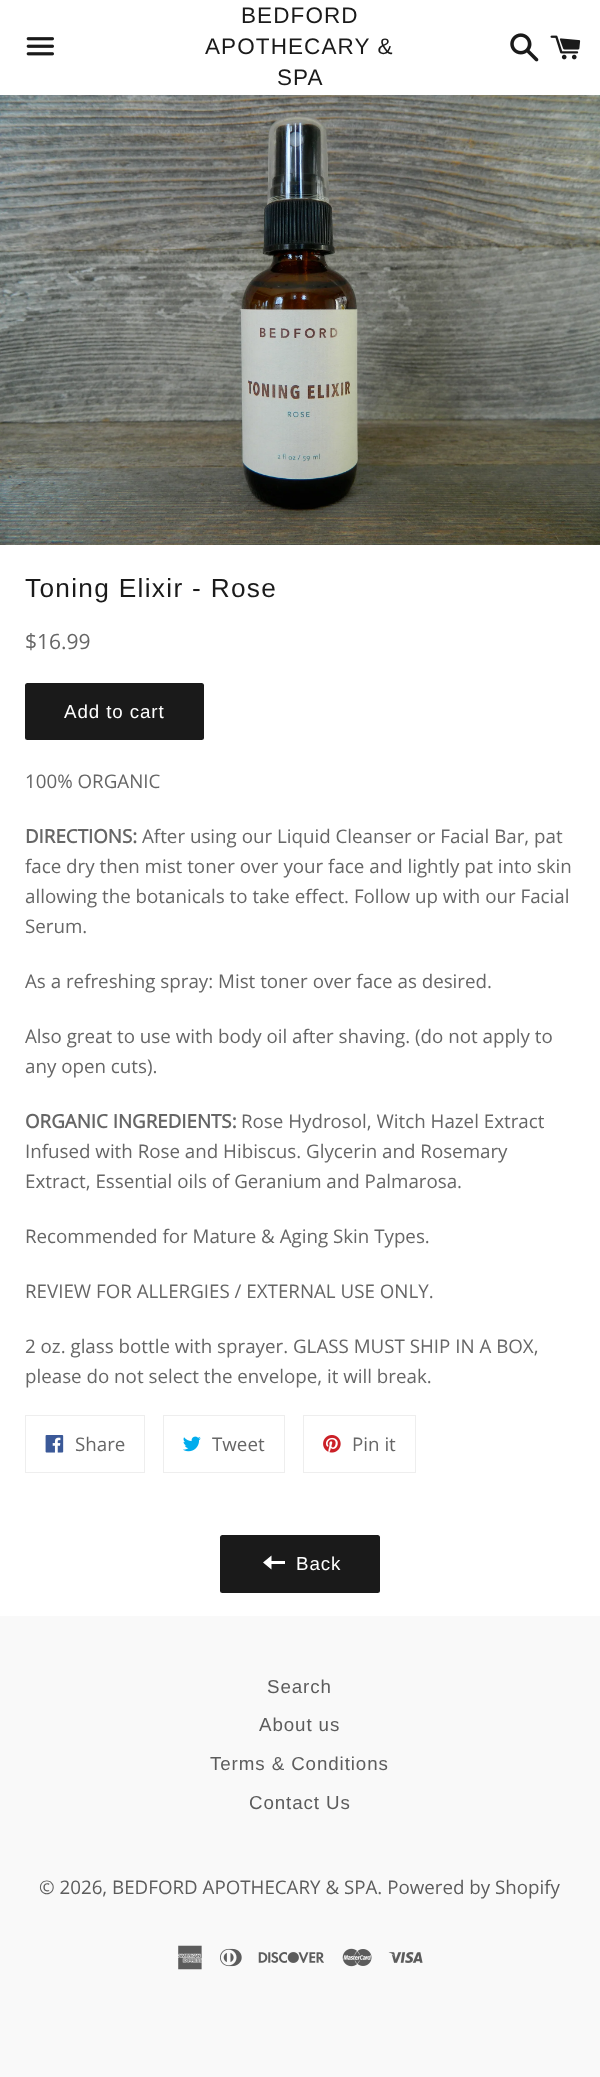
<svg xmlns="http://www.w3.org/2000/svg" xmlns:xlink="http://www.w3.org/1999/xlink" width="600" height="2077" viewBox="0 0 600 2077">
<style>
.cls-1{font:22.5px Liberation Sans;letter-spacing:1.1px;fill:#1a1a1a}
.cls-2{font:26.25px Liberation Sans;letter-spacing:1.3px;fill:#1a1a1a}
.cls-3{font:21px Open Sans;fill:#666666}
.cls-4{font:18.75px Liberation Sans;letter-spacing:0.9px;fill:#ffffff}
.cls-5{font:18.75px Open Sans;fill:#666666}
.cls-6{font:bold 18.75px Open Sans;fill:#666666}
.cls-7{font:18.75px Liberation Sans;letter-spacing:0.9px;fill:#5c5c5c}
.cls-8{font:18.75px Open Sans;fill:#5c5c5c}
</style>
<rect width="100%" height="100%" fill="#f9f9f9"/>
<rect fill="#ffffff" x="0" y="0" width="600" height="1616"/>
<image xlink:href="image0.png" x="26" y="37" width="28" height="19"/>
<image xlink:href="image1.png" x="510" y="33" width="29" height="29"/>
<image xlink:href="image2.png" x="550" y="35" width="31" height="25"/>
<image xlink:href="image3.png" x="0" y="95" width="600" height="450"/>
<rect fill="#1a1a1a" x="25" y="683" width="179" height="57" rx="2.5"/>
<rect fill="none" stroke="#eeeeee" x="25.5" y="1415.5" width="119" height="57"/>
<image xlink:href="image4.png" x="45" y="1435" width="19" height="18"/>
<rect fill="none" stroke="#eeeeee" x="163.5" y="1415.5" width="121" height="57"/>
<image xlink:href="image5.png" x="183" y="1436" width="18" height="16"/>
<rect fill="none" stroke="#eeeeee" x="303.5" y="1415.5" width="112" height="57"/>
<image xlink:href="image6.png" x="323" y="1435" width="18" height="18"/>
<rect fill="#1a1a1a" x="220" y="1535" width="160" height="58" rx="2.5"/>
<path fill="#ffffff" d="M271.5 1561V1555.5L263 1562.5L271.5 1569.5V1564H285V1561Z"/>
<image xlink:href="image7.png" x="178" y="1945" width="24" height="25"/>
<image xlink:href="image8.png" x="220" y="1948" width="22" height="19"/>
<image xlink:href="image9.png" x="258" y="1952" width="66" height="11"/>
<image xlink:href="image10.png" x="342" y="1948" width="30" height="19"/>
<image xlink:href="image11.png" x="388" y="1952" width="35" height="11"/>
<text class="cls-1" x="241" y="23">BEDFORD</text>
<text class="cls-1" x="205" y="54">APOTHECARY &amp;</text>
<text class="cls-1" x="277" y="85">SPA</text>
<text class="cls-2" x="25" y="597">Toning Elixir - Rose</text>
<text class="cls-3" x="25" y="649">$16.99</text>
<text class="cls-4" x="64" y="718">Add to cart</text>
<text class="cls-5" x="25" y="788">100% ORGANIC</text>
<text class="cls-6" x="25" y="843">DIRECTIONS:</text>
<text class="cls-5" x="142" y="843">After using our Liquid Cleanser or Facial Bar, pat</text>
<text class="cls-5"><tspan x="25" y="873">face dry then mist toner over your face and lightly pat into skin</tspan><tspan x="25" y="903">allowing the botanicals to take effect. Follow up with our Facial</tspan><tspan x="25" y="933">Serum.</tspan></text>
<text class="cls-5" x="25" y="988">As a refreshing spray: Mist toner over face as desired.</text>
<text class="cls-5"><tspan x="25" y="1043">Also great to use with body oil after shaving. (do not apply to</tspan><tspan x="25" y="1073">any open cuts).</tspan></text>
<text class="cls-6" x="25" y="1128">ORGANIC INGREDIENTS:</text>
<text class="cls-5" x="241" y="1128">Rose Hydrosol, Witch Hazel Extract</text>
<text class="cls-5"><tspan x="25" y="1158">Infused with Rose and Hibiscus. Glycerin and Rosemary</tspan><tspan x="25" y="1188">Extract, Essential oils of Geranium and Palmarosa.</tspan></text>
<text class="cls-5" x="25" y="1243">Recommended for Mature &amp; Aging Skin Types.</text>
<text class="cls-5" x="25" y="1298">REVIEW FOR ALLERGIES / EXTERNAL USE ONLY.</text>
<text class="cls-5"><tspan x="25" y="1353">2 oz. glass bottle with sprayer. GLASS MUST SHIP IN A BOX,</tspan><tspan x="25" y="1383">please do not select the envelope, it will break.</tspan></text>
<text class="cls-5" x="75" y="1451">Share</text>
<text class="cls-5" x="212" y="1451">Tweet</text>
<text class="cls-5" x="352" y="1451">Pin it</text>
<text class="cls-4" x="296" y="1570">Back</text>
<text class="cls-7" x="267" y="1693">Search</text>
<text class="cls-7" x="259" y="1731">About us</text>
<text class="cls-7" x="210" y="1770">Terms &amp; Conditions</text>
<text class="cls-7" x="249" y="1809">Contact Us</text>
<text class="cls-8" x="39" y="1894">© 2026, BEDFORD APOTHECARY &amp; SPA. Powered by Shopify</text>
</svg>
